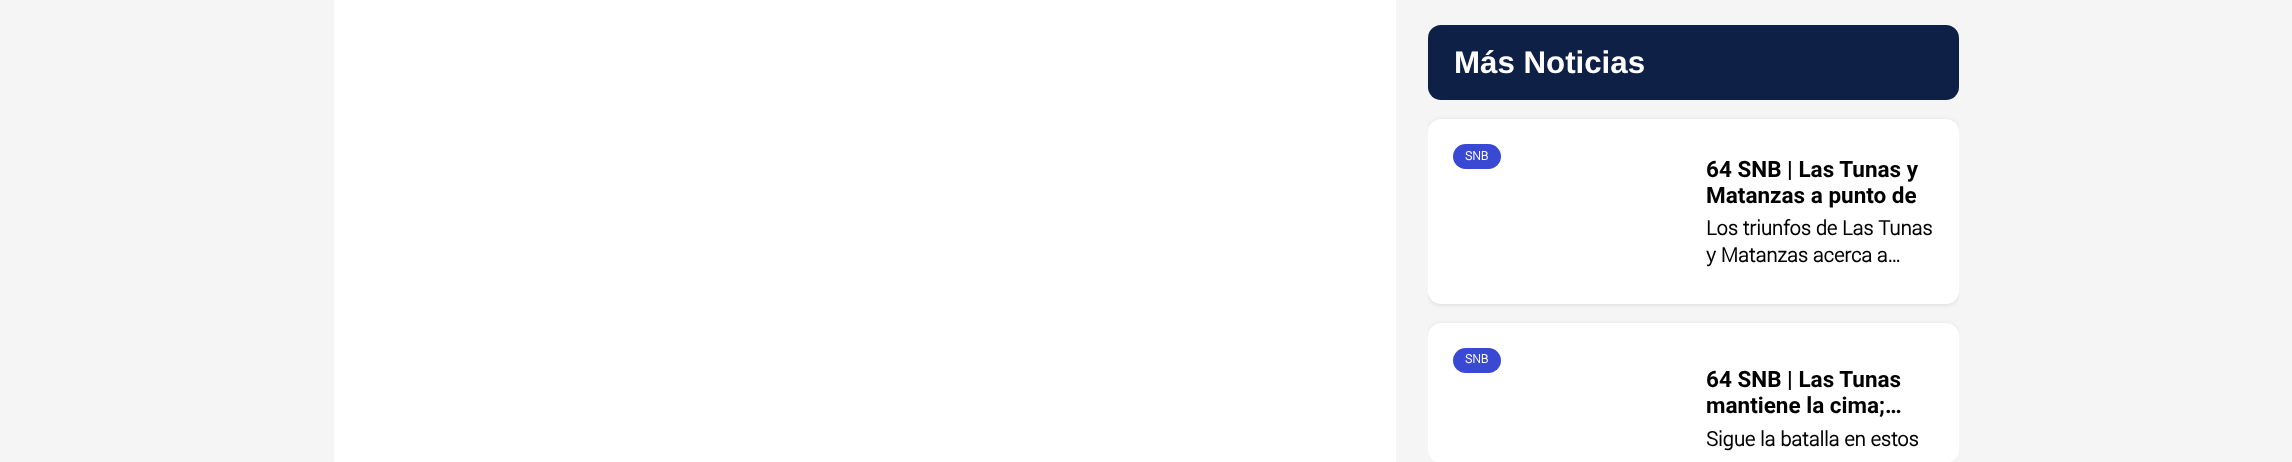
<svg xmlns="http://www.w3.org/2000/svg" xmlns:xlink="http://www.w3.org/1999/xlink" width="2292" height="462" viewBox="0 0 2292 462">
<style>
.cls-1{font:bold 31.25px Liberation Sans;fill:#ffffff}
.cls-2{font:bold 12px Roboto;fill:#ffffff}
.cls-3{font:bold 22.5px 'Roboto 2';fill:#000000}
.cls-4{font:bold 20px Roboto;fill:#000000}
</style>
<defs>
<clipPath id="clip1"><rect x="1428" y="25" width="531" height="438" rx="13"/></clipPath>
</defs>
<rect width="100%" height="100%" fill="#f5f5f5"/>
<rect fill="#ffffff" x="334" y="0" width="1062" height="462"/>
<rect fill="#0f2047" x="1428" y="25" width="531" height="75" rx="13"/>
<g clip-path="url(#clip1)">
<rect fill="#000000" fill-opacity="0.1" filter="blur(2.5px)" x="1428" y="120" width="531" height="185" rx="13"/>
</g>
<rect fill="#ffffff" x="1428" y="119" width="531" height="185" rx="13"/>
<rect fill="#3949d3" x="1453" y="144" width="48" height="25" rx="12.5"/>
<g clip-path="url(#clip1)">
<rect fill="#000000" fill-opacity="0.1" filter="blur(2.5px)" x="1428" y="324" width="531" height="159" rx="13"/>
</g>
<rect fill="#ffffff" x="1428" y="323" width="531" height="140" rx="13"/>
<rect fill="#3949d3" x="1453" y="348" width="48" height="25" rx="12.5"/>
<text class="cls-1" x="1454" y="73">Más Noticias</text>
<text class="cls-2" x="1465" y="160">SNB</text>
<text class="cls-3"><tspan x="1706" y="177">64 SNB | Las Tunas y</tspan><tspan x="1706" y="203">Matanzas a punto de</tspan></text>
<text class="cls-4"><tspan x="1706" y="235">Los triunfos de Las Tunas</tspan><tspan x="1706" y="262">y Matanzas acerca a…</tspan></text>
<text class="cls-2" x="1465" y="363">SNB</text>
<text class="cls-3"><tspan x="1706" y="387">64 SNB | Las Tunas</tspan><tspan x="1706" y="413">mantiene la cima;…</tspan></text>
<text class="cls-4" x="1706" y="446">Sigue la batalla en estos</text>
</svg>
